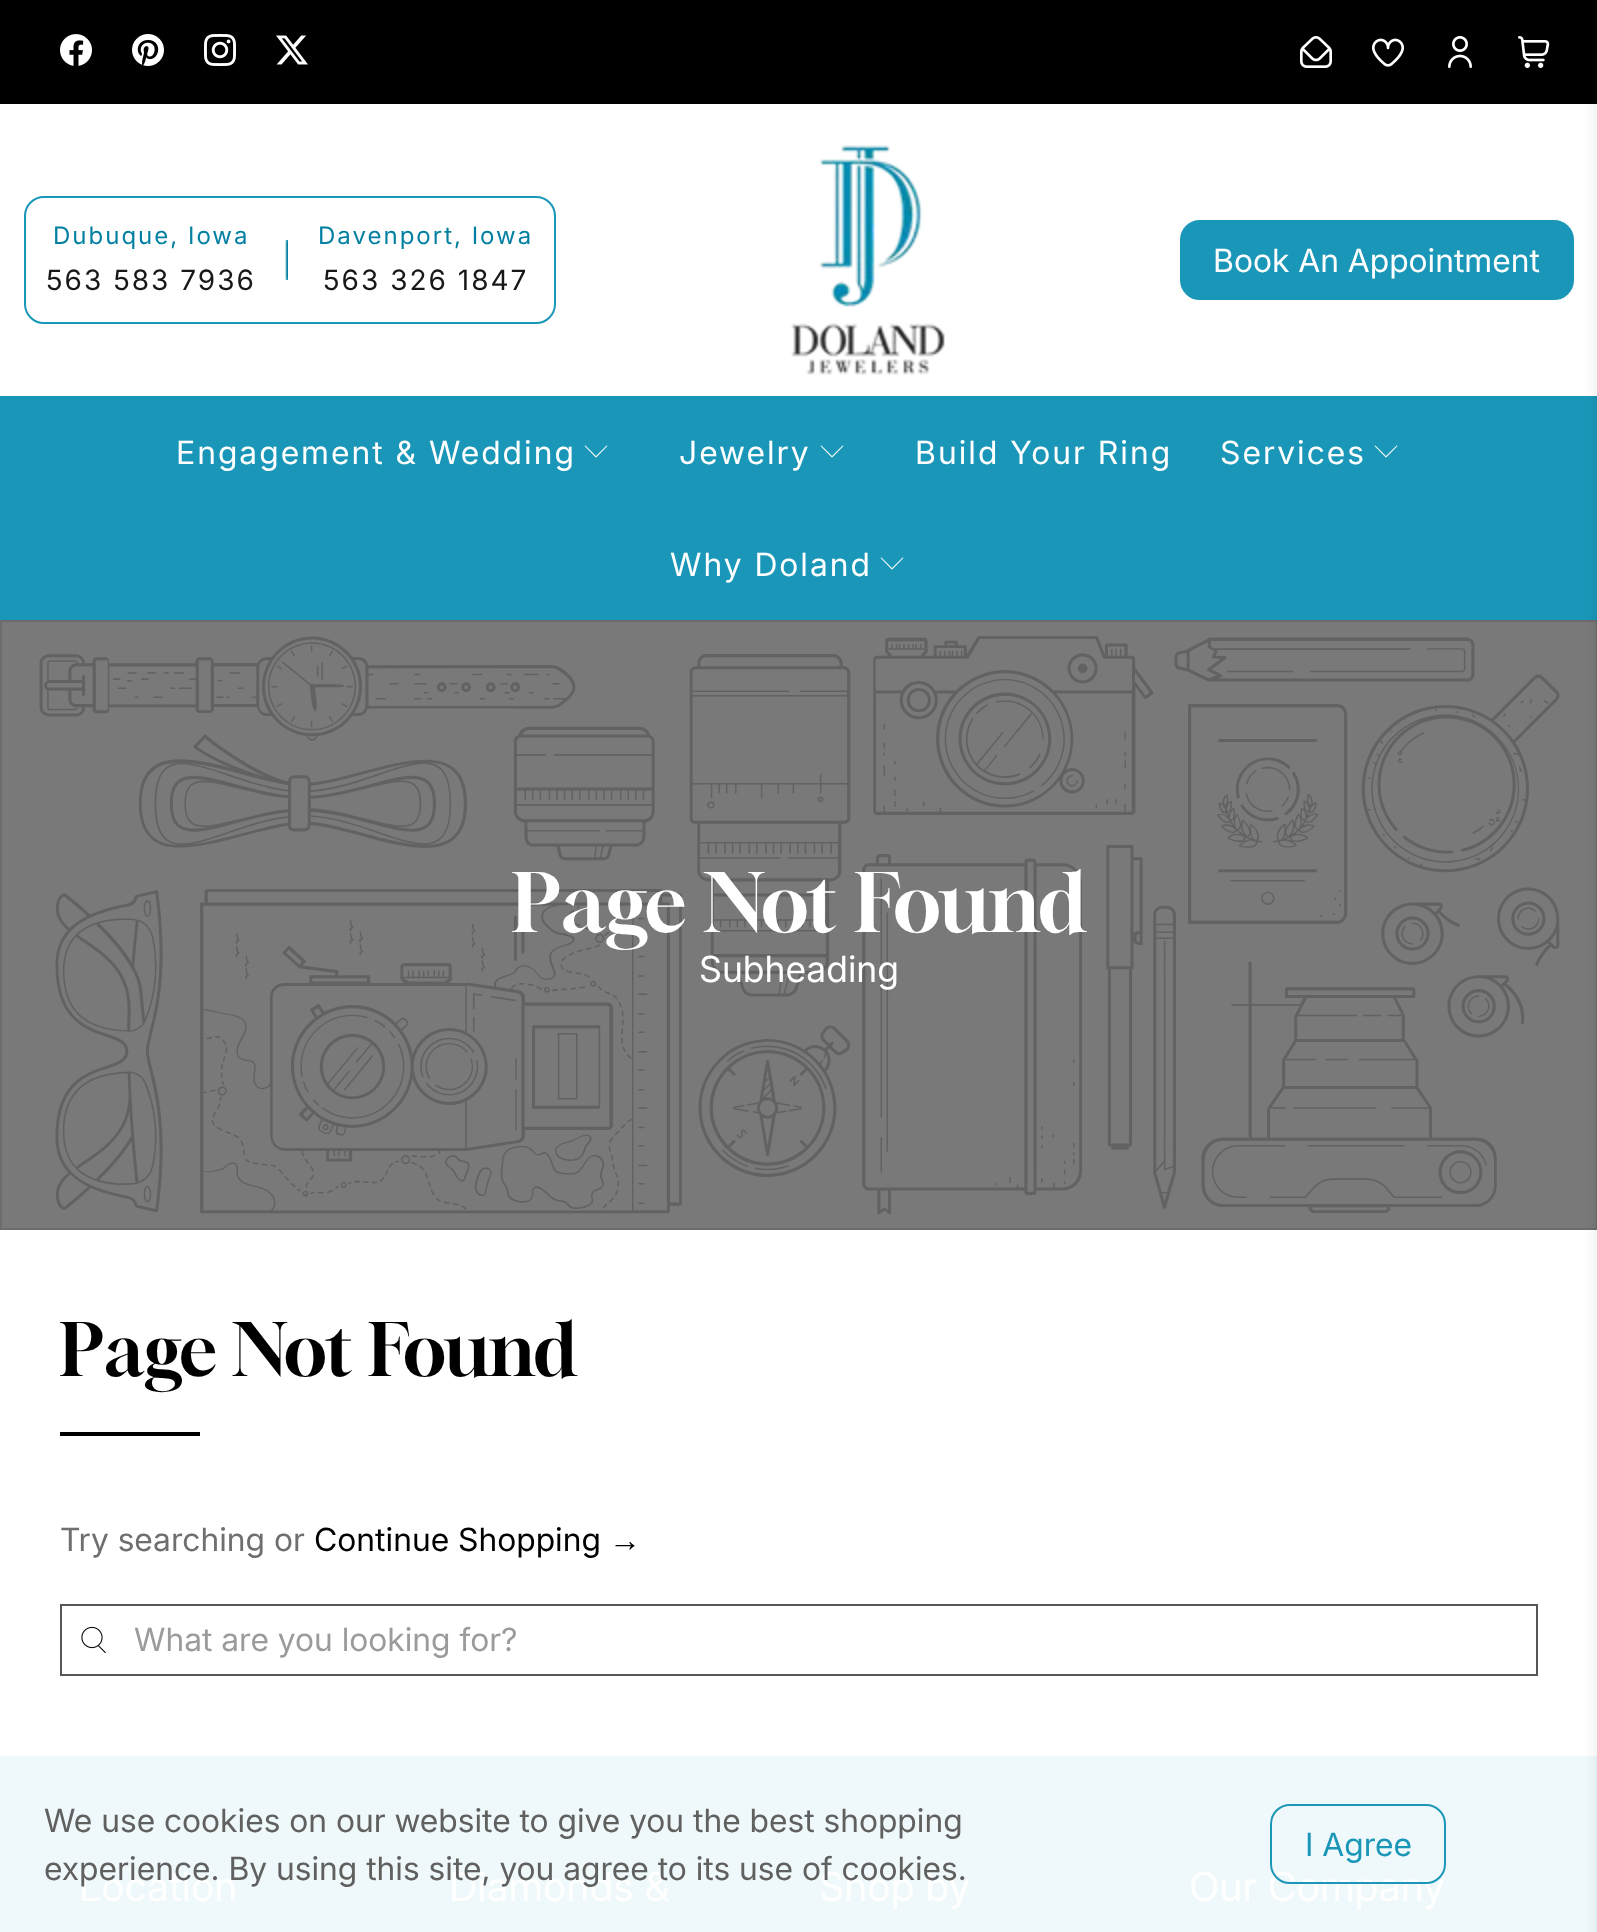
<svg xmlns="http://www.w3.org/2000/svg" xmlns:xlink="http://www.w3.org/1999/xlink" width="1597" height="1932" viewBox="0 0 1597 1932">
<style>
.cls-1{font:24px 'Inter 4';letter-spacing:2px;fill:#0380a1}
.cls-2{font:28px 'Inter 4';letter-spacing:2px;fill:#191718}
.cls-3{font:32px Inter;fill:#ffffff}
.cls-4{font:32px Inter;letter-spacing:2px;fill:#ffffff}
.cls-5{font:80px Gloock;fill:#ffffff}
.cls-6{font:36px 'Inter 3';fill:#ffffff}
.cls-7{font:72px Gloock;fill:#000000}
.cls-8{font:32px Inter;fill:#6f6f6f}
.cls-9{font:32px Inter;fill:#000000}
.cls-10{font:32px Liberation Sans;fill:#000000}
.cls-11{font:32px Inter;fill:#9b9b9b}
.cls-12{font:32px Inter;fill:#606060}
.cls-13{font:40px 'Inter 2';fill:#ffffff}
.cls-14{font:32px Inter;fill:#1a97b8}
</style>
<rect width="100%" height="100%" fill="#ffffff"/>
<rect fill="#000000" x="0" y="0" width="1597" height="104"/>
<image xlink:href="image0.png" x="60" y="34" width="32" height="32"/>
<image xlink:href="image1.png" x="132" y="34" width="32" height="32"/>
<image xlink:href="image2.png" x="204" y="34" width="32" height="32"/>
<image xlink:href="image3.png" x="276" y="35" width="32" height="30"/>
<image xlink:href="image4.png" x="1300" y="36" width="32" height="32"/>
<image xlink:href="image5.png" x="1372" y="38" width="32" height="29"/>
<image xlink:href="image6.png" x="1448" y="36" width="24" height="32"/>
<image xlink:href="image7.png" x="1518" y="36" width="32" height="32"/>
<rect fill="none" stroke="#1a97b8" stroke-width="2" x="25" y="197" width="530" height="126" rx="19"/>
<image xlink:href="image8.png" x="285" y="240" width="3" height="40"/>
<image xlink:href="image9.png" x="791" y="145" width="154" height="230"/>
<rect fill="#1a97b8" stroke="#1a97b8" stroke-width="2" x="1181" y="221" width="392" height="78" rx="19"/>
<rect fill="#1a97b8" x="0" y="396" width="1597" height="224"/>
<image xlink:href="image10.png" x="584" y="445" width="24" height="13"/>
<image xlink:href="image10.png" x="820" y="445" width="24" height="13"/>
<image xlink:href="image10.png" x="1374" y="445" width="24" height="13"/>
<image xlink:href="image10.png" x="880" y="557" width="24" height="13"/>
<rect fill="#797979" stroke="#6c6c6c" stroke-width="2" x="1" y="621" width="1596" height="608"/>
<rect fill="#eff8fa" x="0" y="1756" width="1597" height="176"/>
<rect fill="#0a0a0a" fill-opacity="0.1" filter="blur(8px)" x="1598" y="16" width="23" height="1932"/>
<image xlink:href="image11.png" x="39" y="636" width="1521" height="579"/>
<rect fill="#000000" x="60" y="1432" width="140" height="4"/>
<rect fill="none" stroke="#565656" stroke-width="2" x="61" y="1605" width="1476" height="70"/>
<image xlink:href="image12.png" x="81" y="1626" width="25" height="28"/>
<text class="cls-1" x="53" y="244">Dubuque, Iowa</text>
<text class="cls-2" x="46" y="290">563 583 7936</text>
<text class="cls-1" x="318" y="244">Davenport, Iowa</text>
<text class="cls-2" x="323" y="290">563 326 1847</text>
<text class="cls-3" x="1213" y="272">Book An Appointment</text>
<text class="cls-4" x="176" y="464">Engagement &amp; Wedding</text>
<text class="cls-4" x="679" y="464">Jewelry</text>
<text class="cls-4" x="915" y="464">Build Your Ring</text>
<text class="cls-4" x="1220" y="464">Services</text>
<text class="cls-4" x="670" y="576">Why Doland</text>
<text class="cls-5" x="512" y="932">Page Not Found</text>
<text class="cls-6" x="699" y="982">Subheading</text>
<text class="cls-7" x="60" y="1376">Page Not Found</text>
<text class="cls-8" x="60" y="1551">Try searching or</text>
<text class="cls-9" x="314" y="1551">Continue Shopping</text>
<text class="cls-10" x="609" y="1551">→</text>
<text class="cls-11" x="134" y="1651">What are you looking for?</text>
<text class="cls-12" x="44" y="1832">We use cookies on our website to give you the best shopping</text>
<text class="cls-13" x="79" y="1901">Location</text>
<text class="cls-13" x="449" y="1901">Diamonds &amp;</text>
<text class="cls-13" x="819" y="1901">Shop by</text>
<text class="cls-12" x="44" y="1880">experience. By using this site, you agree to its use of cookies.</text>
<text class="cls-13" x="1189" y="1901">Our Company</text>
<rect fill="none" stroke="#1a97b8" stroke-width="2" x="1271" y="1805" width="174" height="78" rx="19"/>
<text class="cls-14" x="1305" y="1856">I Agree</text>
</svg>
